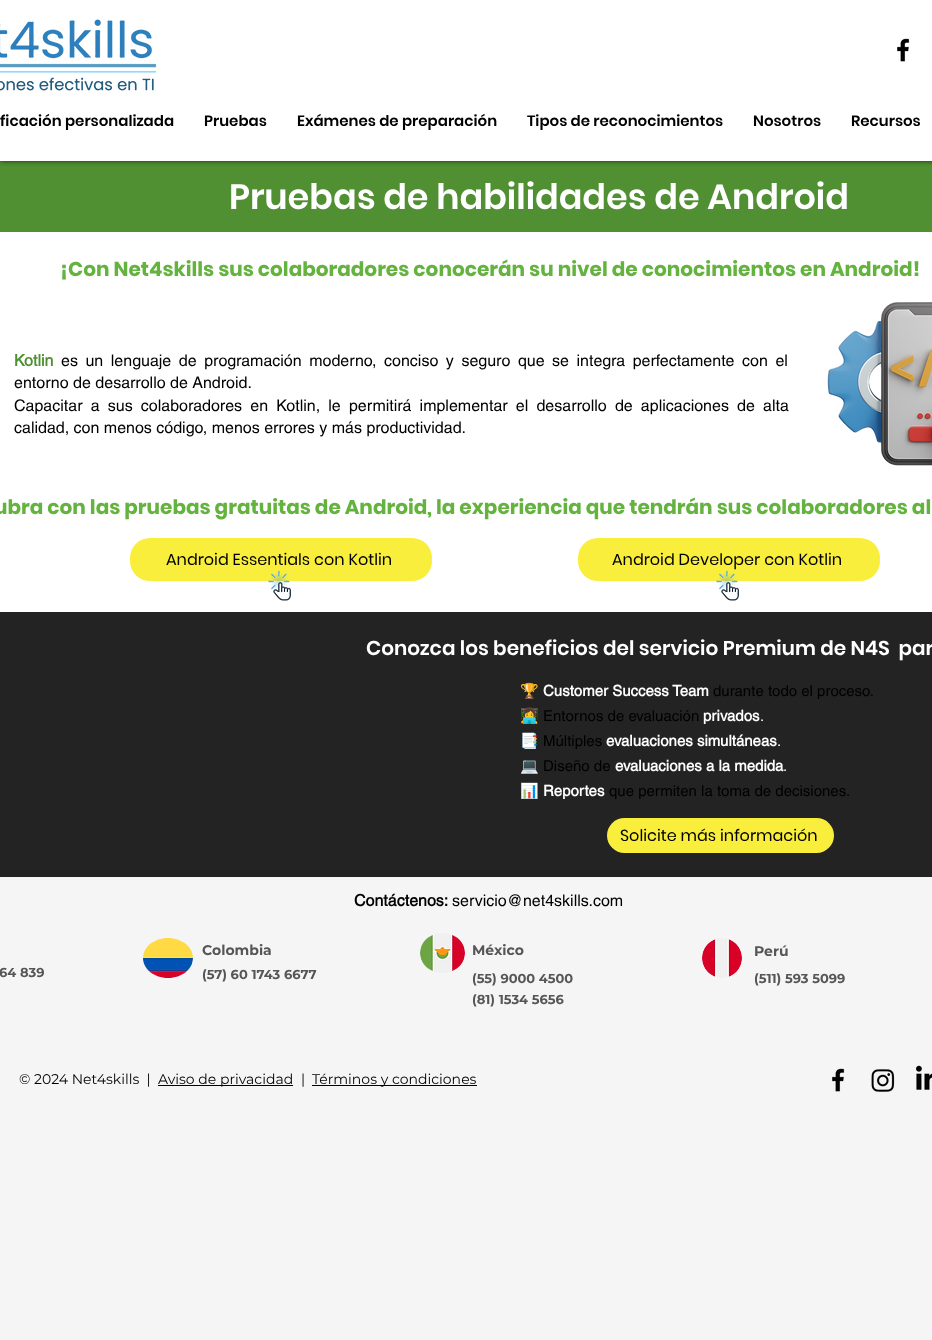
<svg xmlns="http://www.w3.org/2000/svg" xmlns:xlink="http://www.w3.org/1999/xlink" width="932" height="1340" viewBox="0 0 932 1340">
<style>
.cls-1{font:600 15px Poppins;fill:#000000}
.cls-2{font:600 35px Poppins;fill:#ffffff}
.cls-3{font:bold 20px Poppins;fill:#64b33e}
.cls-4{font:bold 16px helvetica;fill:#508f32}
.cls-5{font:16px helvetica;fill:#000000}
.cls-6{font:16px Poppins;fill:#000000}
.cls-7{font:600 20px Poppins;fill:#ffffff}
.cls-8{font:15px Noto Color Emoji;fill:#000000}
.cls-9{font:bold 15px helvetica;fill:#ffffff}
.cls-10{font:15px helvetica;fill:#000000}
.cls-11{font:15px helvetica;fill:#ffffff}
.cls-12{font:bold 16px helvetica;fill:#000000}
.cls-13{font:bold 14px Montserrat;fill:#565656}
.cls-14{font:bold 13px Montserrat;fill:#565656}
.cls-15{font:14px Montserrat;fill:#000000}
</style>
<rect width="100%" height="100%" fill="#f5f5f5"/>
<rect fill="#508f32" x="0" y="161" width="932" height="71"/>
<rect fill="#000000" fill-opacity="0.7" filter="blur(2.5px)" x="0" y="0" width="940" height="161"/>
<rect fill="#ffffff" x="0" y="0" width="932" height="161"/>
<image xlink:href="image0.png" x="0" y="19" width="157" height="72"/>
<image xlink:href="image1.png" x="897" y="38" width="13" height="24"/>
<rect fill="#ffffff" x="0" y="232" width="932" height="380"/>
<image xlink:href="image2.png" x="827" y="302" width="105" height="164"/>
<rect fill="#f9ee3b" x="130" y="538" width="302" height="43" rx="20"/>
<rect fill="#f9ee3b" x="578" y="538" width="302" height="43" rx="20"/>
<image xlink:href="image3.png" x="268" y="570" width="23" height="31"/>
<image xlink:href="image3.png" x="716" y="570" width="23" height="31"/>
<rect fill="#242323" x="0" y="612" width="932" height="265"/>
<rect fill="#f9ee3b" x="607" y="818" width="227" height="35" rx="17.5"/>
<image xlink:href="image4.png" x="143" y="938" width="50" height="40"/>
<image xlink:href="image5.png" x="420" y="933" width="45" height="40"/>
<image xlink:href="image6.png" x="702" y="938" width="40" height="40"/>
<rect fill="#000000" x="158" y="1085" width="135" height="1"/>
<rect fill="#000000" x="312" y="1085" width="165" height="1"/>
<image xlink:href="image7.png" x="832" y="1068" width="13" height="24"/>
<image xlink:href="image8.png" x="871" y="1069" width="24" height="23"/>
<image xlink:href="image9.png" x="915" y="1065" width="17" height="25"/>
<text class="cls-1" x="0" y="126">ficación personalizada</text>
<text class="cls-1" x="204" y="126">Pruebas</text>
<text class="cls-1" x="297" y="126">Exámenes de preparación</text>
<text class="cls-1" x="527" y="126">Tipos de reconocimientos</text>
<text class="cls-1" x="753" y="126">Nosotros</text>
<text class="cls-1" x="851" y="126">Recursos</text>
<text class="cls-2" x="229" y="209">Pruebas de habilidades de Android</text>
<text class="cls-3" x="60" y="276">¡Con Net4skills sus colaboradores conocerán su nivel de conocimientos en Android!</text>
<text class="cls-4" x="14" y="366">Kotlin</text>
<text class="cls-5" x="61" y="366" word-spacing="3.1">es un lenguaje de programación moderno, conciso y seguro que se integra perfectamente con el</text>
<text class="cls-5"><tspan x="14" y="388">entorno de desarrollo de Android.</tspan><tspan x="14" y="411" word-spacing="3.75">Capacitar a sus colaboradores en Kotlin, le permitirá implementar el desarrollo de aplicaciones de alta</tspan><tspan x="14" y="433">calidad, con menos código, menos errores y más productividad.</tspan></text>
<text class="cls-3" x="-6" y="514">ubra con las pruebas gratuitas de Android, la experiencia que tendrán sus colaboradores al</text>
<text class="cls-6" x="166" y="565">Android Essentials con Kotlin</text>
<text class="cls-6" x="612" y="565">Android Developer con Kotlin</text>
<text class="cls-7" xml:space="preserve" x="366" y="655">Conozca los beneficios del servicio Premium de N4S  par</text>
<text class="cls-8" x="520" y="696">🏆</text>
<text class="cls-9" x="543" y="696">Customer Success Team</text>
<text class="cls-10" x="713" y="696">durante todo el proceso.</text>
<text class="cls-8" x="520" y="721">👩‍💻</text>
<text class="cls-10" x="543" y="721">Entornos de evaluación</text>
<text class="cls-9" x="703" y="721">privados</text>
<text class="cls-11" x="760" y="721">.</text>
<text class="cls-8" x="520" y="746">📑</text>
<text class="cls-10" x="543" y="746">Múltiples</text>
<text class="cls-9" x="606" y="746">evaluaciones simultáneas</text>
<text class="cls-11" x="777" y="746">.</text>
<text class="cls-8" x="520" y="771">💻</text>
<text class="cls-10" x="543" y="771">Diseño de</text>
<text class="cls-9" x="615" y="771">evaluaciones a la medida</text>
<text class="cls-11" x="783" y="771">.</text>
<text class="cls-8" x="520" y="796">📊</text>
<text class="cls-9" x="543" y="796">Reportes</text>
<text class="cls-10" x="609" y="796">que permiten la toma de decisiones.</text>
<text class="cls-6" x="620" y="841">Solicite más información</text>
<text class="cls-12" x="354" y="906">Contáctenos:</text>
<text class="cls-5" x="452" y="906">servicio@net4skills.com</text>
<text class="cls-13" x="202" y="955">Colombia</text>
<text class="cls-13" x="472" y="955">México</text>
<text class="cls-13" x="754" y="956">Perú</text>
<text class="cls-14" x="-1" y="977">64 839</text>
<text class="cls-14" x="202" y="979">(57) 60 1743 6677</text>
<text class="cls-14"><tspan x="472" y="983">(55) 9000 4500</tspan><tspan x="472" y="1004">(81) 1534 5656</tspan></text>
<text class="cls-14" x="754" y="983">(511) 593 5099</text>
<text class="cls-15" xml:space="preserve" x="19" y="1084">© 2024 Net4skills  |</text>
<text class="cls-15" x="158" y="1084">Aviso de privacidad</text>
<text class="cls-15" x="301" y="1084">|</text>
<text class="cls-15" x="312" y="1084">Términos y condiciones</text>
</svg>
